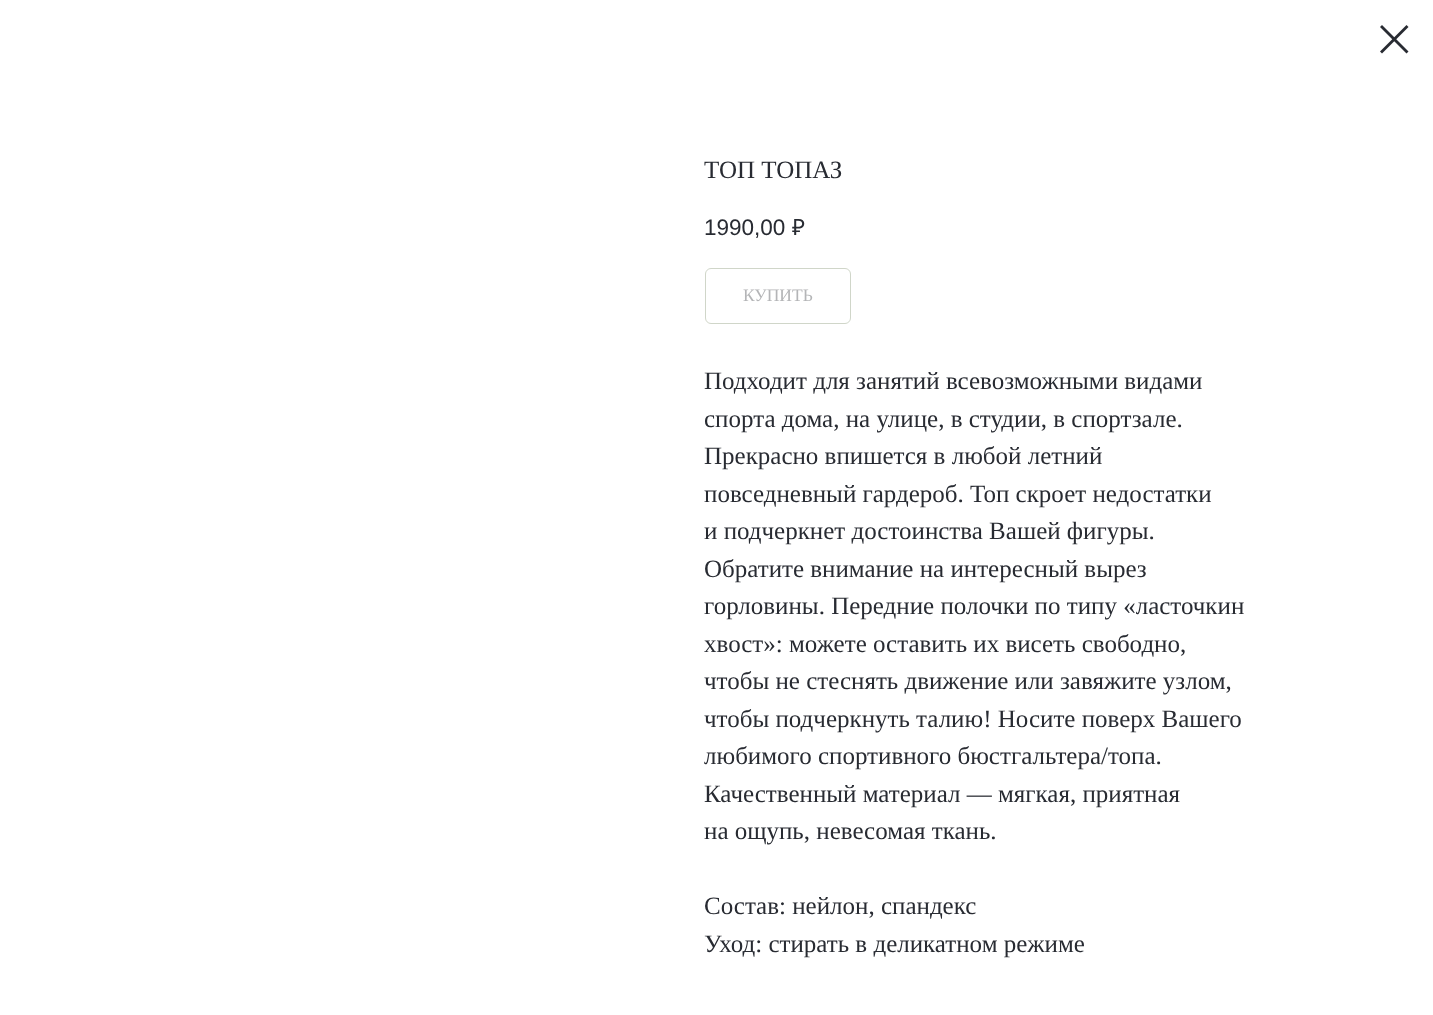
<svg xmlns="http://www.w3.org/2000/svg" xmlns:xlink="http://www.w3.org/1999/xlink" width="1433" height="1015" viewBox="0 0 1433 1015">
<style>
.cls-1{font:25px Liberation Serif;fill:#282b32}
.cls-2{font:22.5px Liberation Sans;fill:#282b32}
.cls-3{font:22.5px Noto Sans;fill:#282b32}
.cls-4{font:17.5px Liberation Serif;fill:#b4b5b7}
</style>
<rect width="100%" height="100%" fill="#ffffff"/>
<path fill="#282b32" fill-rule="evenodd" d="M1380 27L1382 25L1408.5 51.5L1406.5 53.5Z"/>
<path fill="#282b32" fill-rule="evenodd" d="M1406.5 25L1408.5 27L1382 53.5L1380 51.5Z"/>
<rect fill="none" stroke="#d0d6c9" x="705.5" y="268.5" width="145" height="55" rx="5.5"/>
<text class="cls-1" x="704" y="178">ТОП ТОПАЗ</text>
<text class="cls-2" x="704" y="235">1990,00</text>
<text class="cls-3" x="792" y="235">₽</text>
<text class="cls-4" x="743" y="301">КУПИТЬ</text>
<text class="cls-1"><tspan x="704" y="389">Подходит для занятий всевозможными видами</tspan><tspan x="704" y="427">спорта дома, на улице, в студии, в спортзале.</tspan><tspan x="704" y="464">Прекрасно впишется в любой летний</tspan><tspan x="704" y="502">повседневный гардероб. Топ скроет недостатки</tspan><tspan x="704" y="539">и подчеркнет достоинства Вашей фигуры.</tspan><tspan x="704" y="577">Обратите внимание на интересный вырез</tspan><tspan x="704" y="614">горловины. Передние полочки по типу «ласточкин</tspan><tspan x="704" y="652">хвост»: можете оставить их висеть свободно,</tspan><tspan x="704" y="689">чтобы не стеснять движение или завяжите узлом,</tspan><tspan x="704" y="727">чтобы подчеркнуть талию! Носите поверх Вашего</tspan><tspan x="704" y="764">любимого спортивного бюстгальтера/топа.</tspan><tspan x="704" y="802">Качественный материал — мягкая, приятная</tspan><tspan x="704" y="839">на ощупь, невесомая ткань.</tspan></text>
<text class="cls-1"><tspan x="704" y="914">Состав: нейлон, спандекс</tspan><tspan x="704" y="952">Уход: стирать в деликатном режиме</tspan></text>
</svg>
